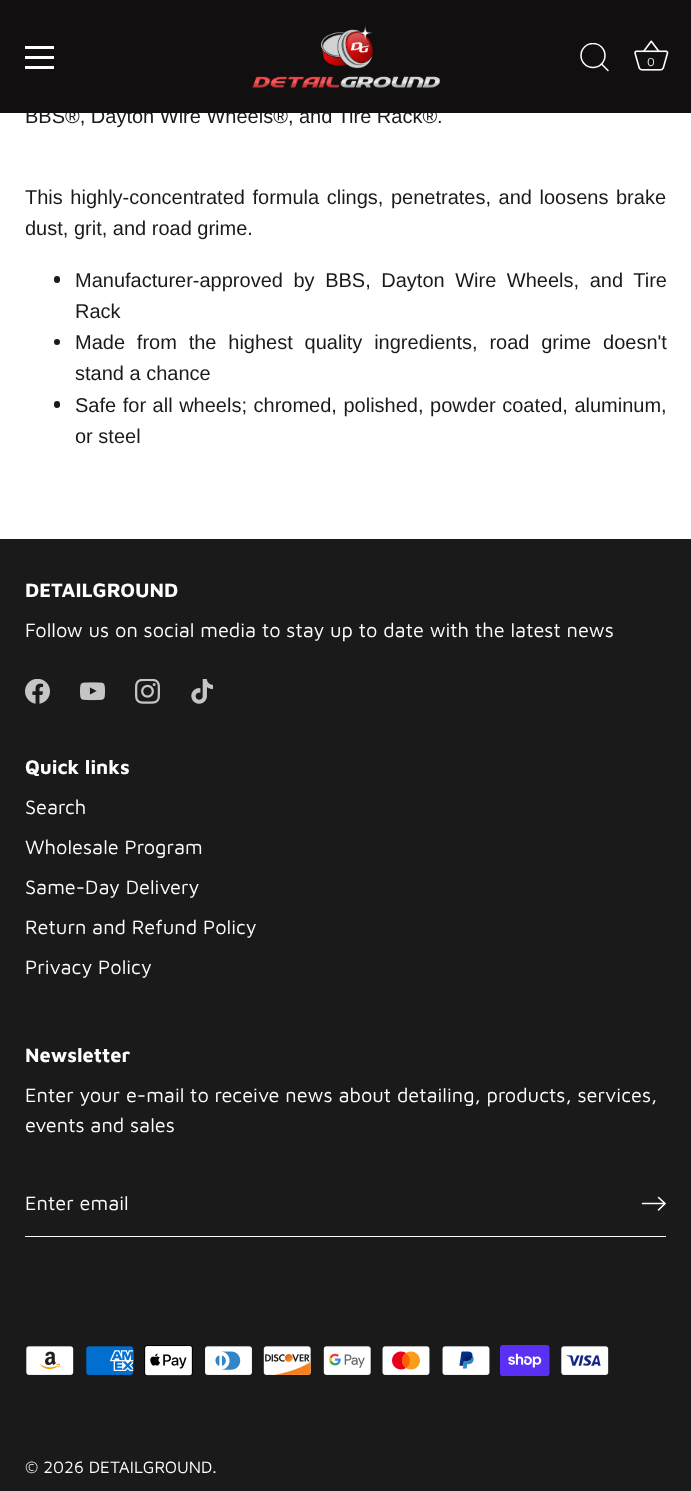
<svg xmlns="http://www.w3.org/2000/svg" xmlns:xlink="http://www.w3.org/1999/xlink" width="691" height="1491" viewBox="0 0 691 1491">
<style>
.cls-1{font:20px Liberation Sans;fill:#1a1a1a}
.cls-2{font:12px Maven Pro;fill:#ffffff}
.cls-3{font:bold 20px Maven Pro;fill:#ffffff}
.cls-4{font:20px Maven Pro;fill:#ffffff}
.cls-5{font:17px Maven Pro;fill:#ffffff}
</style>
<defs>
<clipPath id="clip1"><rect x="580" y="43" width="30" height="30"/></clipPath>
</defs>
<rect width="100%" height="100%" fill="#ffffff"/>
<rect fill="#1a1a1a" x="54" y="276" width="6" height="7" rx="3"/>
<circle fill="#1a1a1a" cx="57" cy="342" r="3"/>
<rect fill="#1a1a1a" x="54" y="401" width="6" height="7" rx="3"/>
<rect fill="#1a1a1a" x="0" y="539" width="691" height="952"/>
<image xlink:href="image2.png" x="25" y="679" width="25" height="25"/>
<image xlink:href="image3.png" x="80" y="682" width="25" height="19"/>
<image xlink:href="image4.png" x="135" y="679" width="25" height="25"/>
<image xlink:href="image5.png" x="191" y="679" width="22" height="25"/>
<rect fill="#ffffff" x="25" y="1236" width="641" height="1"/>
<path fill="none" stroke="#ffffff" stroke-width="1.6" stroke-linecap="round" d="M658.5 1210L665 1203.5L658.5 1197.5"/>
<path fill="none" stroke="#ffffff" stroke-width="1.6" stroke-linecap="round" stroke-linejoin="round" d="M664 1203.5H642.5"/>
<image xlink:href="image6.png" x="26" y="1346" width="48" height="29"/>
<image xlink:href="image7.png" x="86" y="1346" width="48" height="29"/>
<image xlink:href="image8.png" x="144" y="1345" width="49" height="31"/>
<image xlink:href="image9.png" x="205" y="1346" width="47" height="29"/>
<image xlink:href="image10.png" x="263" y="1346" width="48" height="29"/>
<image xlink:href="image11.png" x="323" y="1346" width="48" height="29"/>
<image xlink:href="image12.png" x="382" y="1346" width="48" height="29"/>
<image xlink:href="image13.png" x="442" y="1346" width="48" height="29"/>
<image xlink:href="image14.png" x="500" y="1345" width="50" height="31"/>
<image xlink:href="image15.png" x="561" y="1346" width="48" height="29"/>
<text class="cls-1" x="25" y="123">BBS®, Dayton Wire Wheels®, and Tire Rack®.</text>
<rect fill="#110f0f" x="0" y="0" width="691" height="113"/>
<image xlink:href="image1.png" x="634" y="40" width="35" height="31"/>
<text class="cls-2" x="647" y="66">0</text>
<g clip-path="url(#clip1)">
<circle fill="none" stroke="#ffffff" stroke-width="1.5" cx="593" cy="55.5" r="12"/>
</g>
<path fill="none" stroke="#ffffff" stroke-width="1.5" stroke-linecap="round" stroke-linejoin="round" d="M608 70.5L601.5 64"/>
<image xlink:href="image0.png" x="252" y="25" width="188" height="63"/>
<rect fill="#ffffff" x="25" y="66" width="29" height="3"/>
<rect fill="#ffffff" x="25" y="56" width="29" height="3"/>
<rect fill="#ffffff" x="25" y="46" width="29" height="3"/>
<text class="cls-1"><tspan x="25" y="204" word-spacing="2">This highly-concentrated formula clings, penetrates, and loosens brake</tspan><tspan x="25" y="235">dust, grit, and road grime.</tspan></text>
<text class="cls-1"><tspan x="75" y="287" word-spacing="5">Manufacturer-approved by BBS, Dayton Wire Wheels, and Tire</tspan><tspan x="75" y="318">Rack</tspan><tspan x="75" y="349" word-spacing="6.25">Made from the highest quality ingredients, road grime doesn't</tspan><tspan x="75" y="380">stand a chance</tspan><tspan x="75" y="412" word-spacing="1">Safe for all wheels; chromed, polished, powder coated, aluminum,</tspan><tspan x="75" y="443">or steel</tspan></text>
<text class="cls-3" x="25" y="597">DETAILGROUND</text>
<text class="cls-4" x="25" y="637">Follow us on social media to stay up to date with the latest news</text>
<text class="cls-3" x="25" y="774">Quick links</text>
<text class="cls-4" x="25" y="814">Search</text>
<text class="cls-4" x="25" y="854">Wholesale Program</text>
<text class="cls-4" x="25" y="894">Same-Day Delivery</text>
<text class="cls-4" x="25" y="934">Return and Refund Policy</text>
<text class="cls-4" x="25" y="974">Privacy Policy</text>
<text class="cls-3" x="25" y="1062">Newsletter</text>
<text class="cls-4"><tspan x="25" y="1102">Enter your e-mail to receive news about detailing, products, services,</tspan><tspan x="25" y="1132">events and sales</tspan></text>
<text class="cls-4" x="25" y="1210">Enter email</text>
<text class="cls-5" x="25" y="1473">© 2026 DETAILGROUND.</text>
</svg>
